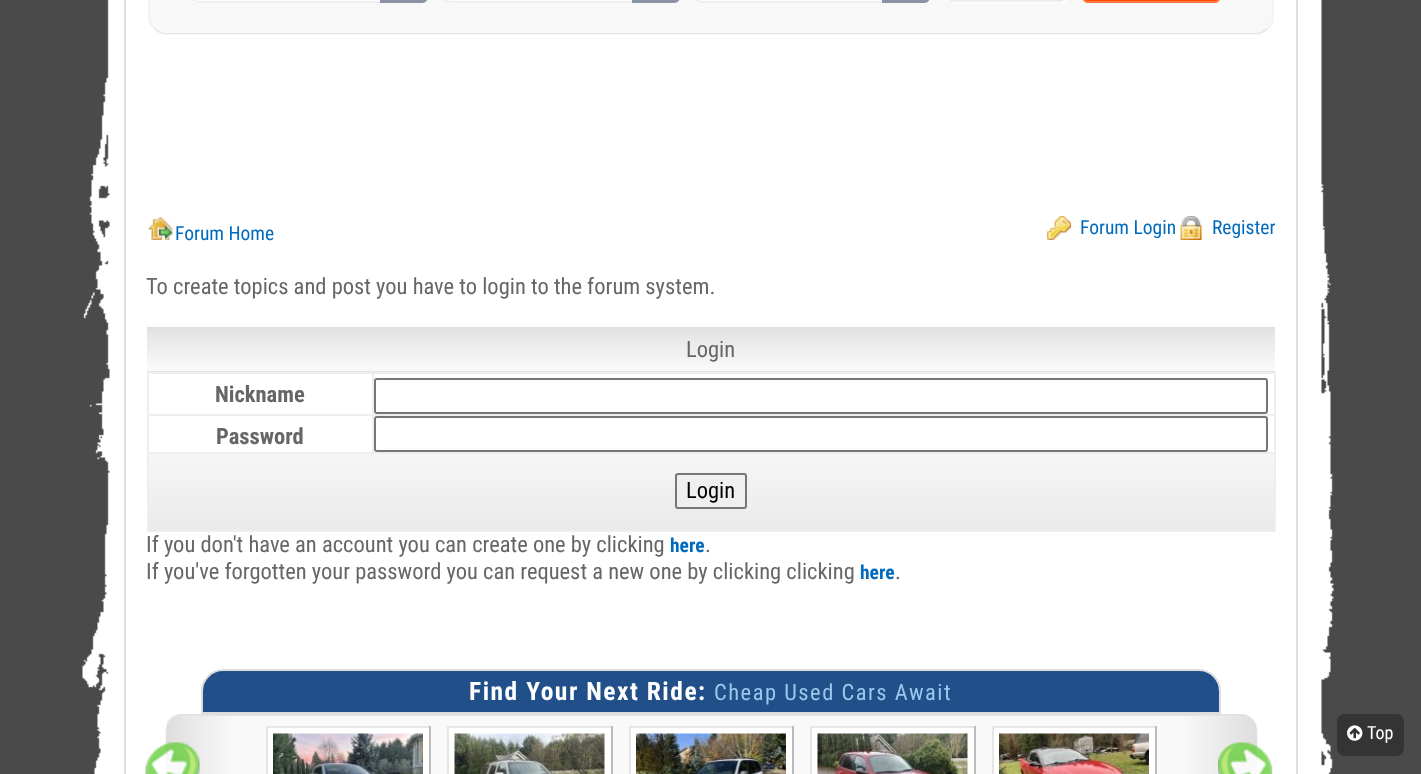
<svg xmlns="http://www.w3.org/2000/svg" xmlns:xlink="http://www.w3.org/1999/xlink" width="1421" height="774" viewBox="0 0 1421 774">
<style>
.cls-1{font:19.5px Roboto Condensed;fill:#006bbe}
.cls-2{font:22.5px Roboto Condensed;fill:#666666}
.cls-3{font:bold 22.5px Roboto Condensed;fill:#666666}
.cls-4{font:22.5px Roboto Condensed;fill:#000000}
.cls-5{font:bold 19.5px Roboto Condensed;fill:#006bbe}
.cls-6{font:bold 25.5px Roboto Condensed;letter-spacing:1.5px;fill:#ffffff}
.cls-7{font:22.5px Roboto Condensed;letter-spacing:1.5px;fill:#9ac8ec}
.cls-8{font:18px Roboto Condensed;fill:#ffffff}
</style>
<defs>
<linearGradient id="g1" gradientUnits="userSpaceOnUse" x1="711" y1="328" x2="711" y2="371"><stop offset="0" stop-color="#e2e2e2"/><stop offset="1" stop-color="#fafafa"/></linearGradient>
<linearGradient id="g2" gradientUnits="userSpaceOnUse" x1="711" y1="370" x2="711" y2="413"><stop offset="0" stop-color="#e2e2e2"/><stop offset="1" stop-color="#fafafa"/></linearGradient>
<linearGradient id="g3" gradientUnits="userSpaceOnUse" x1="711" y1="451" x2="711" y2="530"><stop offset="0" stop-color="#f7f7f7"/><stop offset="1" stop-color="#eaeaea"/></linearGradient>
<linearGradient id="g4" gradientUnits="userSpaceOnUse" x1="167" y1="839" x2="1256" y2="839"><stop offset="0" stop-color="#dedede"/><stop offset="0.06" stop-color="#f9f9f9"/><stop offset="0.93" stop-color="#f9f9f9"/><stop offset="1" stop-color="#dedede"/></linearGradient>
</defs>
<rect width="100%" height="100%" fill="#4a4a4a"/>
<image xlink:href="image0.png" x="82" y="0" width="1252" height="774"/>
<path fill="#dfdfdf" fill-rule="evenodd" d="M124-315H1298V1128C1298 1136 1291 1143 1282 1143H140C131 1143 124 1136 124 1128ZM126-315H1296V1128C1296 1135 1290 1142 1282 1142H140C132 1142 126 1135 126 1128Z"/>
<path fill="#f8f8f8" d="M149-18H1274V17C1274 27 1266 35 1256 35H167C157 35 149 27 149 17Z"/>
<path fill="#f4f4f4" d="M1274-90V20C1273 24 1271 27 1268 29L1267 28C1270 25 1272 21 1272 16V-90Z"/>
<path fill="#e4e4e4" d="M1268 29C1265 32 1260 34 1256 34H166C162 34 157 32 154 29L155 28C158 31 162 33 166 33H1256C1260 33 1264 31 1267 28Z"/>
<path fill="#f1f1f1" d="M150-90V16C150 21 152 25 155 28L154 29C151 27 149 24 148 20V-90Z"/>
<rect fill="#fbfbfb" x="192" y="-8" width="236" height="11" rx="8"/>
<path fill="none" stroke="#ebebeb" stroke-width="1.5" d="M425-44C426-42.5 427-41 427-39V-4.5C427-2.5 426-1 425 .5C423.5 1.5 422 2 420 2H199.5C197.5 2 196 1.5 194.5 .5"/>
<path fill="none" stroke="#e6e6e6" stroke-width="1.5" d="M194.5 .5C193.5-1 193-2.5 193-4.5V-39C193-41 193.5-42.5 194.5-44"/>
<path fill="#8a93a3" d="M380-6H422C425.5-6 428-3.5 428 0V-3C428 .5 425.5 3 422 3H380Z"/>
<rect fill="#fbfbfb" x="443" y="-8" width="237" height="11" rx="8"/>
<path fill="none" stroke="#ebebeb" stroke-width="1.5" d="M677-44C678-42.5 679-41 679-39V-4.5C679-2.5 678-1 677 .5C675.5 1.5 674 2 672 2H450C448 2 446.5 1.5 445 .5"/>
<path fill="none" stroke="#e6e6e6" stroke-width="1.5" d="M445 .5C444-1 443-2.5 443-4.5V-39C443-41 444-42.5 445-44"/>
<path fill="#8a93a3" d="M632-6H674C677.5-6 680-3.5 680 0V-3C680 .5 677.5 3 674 3H632Z"/>
<rect fill="#fbfbfb" x="695" y="-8" width="235" height="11" rx="8"/>
<path fill="none" stroke="#ebebeb" stroke-width="1.5" d="M927.5-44C928.5-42.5 929-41 929-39V-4.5C929-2.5 928.5-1 927.5 .5C926 1.5 924.5 2 922.5 2H702C700 2 698.5 1.5 697 .5"/>
<path fill="none" stroke="#e6e6e6" stroke-width="1.5" d="M697 .5C696-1 695-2.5 695-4.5V-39C695-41 696-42.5 697-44"/>
<path fill="#8a93a3" d="M882-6H924C927.5-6 930-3.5 930 0V-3C930 .5 927.5 3 924 3H882Z"/>
<path fill="#ffffff" d="M949 0C950 2 952 3 954 3H1062C1065 3 1068 0 1068-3V-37C1068-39 1067-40 1066-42V-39V-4C1066-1 1064 2 1060 2H952C951 2 950 1 949 0Z"/>
<rect fill="#ffffff" x="947" y="-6" width="120" height="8" rx="6"/>
<path fill="none" stroke="#e7e7e7" stroke-width="1.5" d="M1064-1C1063 0 1062 .5 1060.5 1H952.5C951 1 950 0 949-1"/>
<image xlink:href="image1.png" x="1083" y="0" width="137" height="3"/>
<rect fill="none" stroke="#ff7845" stroke-width="2" x="1084" y="-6" width="135" height="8" rx="4"/>
<image xlink:href="image2.png" x="148" y="216" width="25" height="24"/>
<image xlink:href="image3.png" x="1047" y="216" width="24" height="24"/>
<image xlink:href="image4.png" x="1180" y="216" width="22" height="24"/>
<rect fill="url(#g1)" x="147" y="329" width="1128" height="42"/>
<rect fill="url(#g2)" x="147" y="371" width="1128" height="1"/>
<rect fill="#dfdfdf" x="147" y="327" width="1128" height="2"/>
<rect fill="#eeeeee" x="147" y="372" width="1128" height="2"/>
<rect fill="none" stroke="#767676" stroke-width="2" x="375" y="379" width="892" height="34" rx="2"/>
<rect fill="#eeeeee" x="147" y="414" width="1128" height="2"/>
<rect fill="#eeeeee" x="147" y="452" width="1128" height="2"/>
<rect fill="#eeeeee" x="372" y="372" width="2" height="81"/>
<rect fill="#eeeeee" x="1274" y="452" width="2" height="79"/>
<rect fill="#eeeeee" x="147" y="530" width="1128" height="2"/>
<rect fill="#eeeeee" x="147" y="452" width="2" height="79"/>
<rect fill="#eeeeee" x="147" y="372" width="2" height="81"/>
<rect fill="#eeeeee" x="1274" y="372" width="2" height="81"/>
<rect fill="none" stroke="#767676" stroke-width="2" x="375" y="417" width="892" height="34" rx="2"/>
<rect fill="url(#g3)" x="149" y="454" width="1125" height="76"/>
<rect fill="#efefef" stroke="#767676" stroke-width="2" x="676" y="474" width="70" height="34" rx="2"/>
<path fill="#214f8a" stroke="#dddddd" stroke-width="2" d="M223.5 670H1198.5C1210.5 670 1220 679.5 1220 691.5V713H202V691.5C202 679.5 211.5 670 223.5 670Z"/>
<rect fill="#9c9c9c" filter="blur(1px)" x="167" y="716" width="1089" height="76" rx="15"/>
<rect fill="url(#g4)" x="167" y="714" width="1089" height="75" rx="15"/>
<path fill="#e2e2e2" d="M182 714C176 714 166 719 166 726C168 720 174 716 182 716H1240C1248 716 1254 720 1256 726C1256 719 1246 714 1240 714Z"/>
<image xlink:href="image5.png" x="145" y="742" width="55" height="32"/>
<rect fill="#ffffff" x="268" y="728" width="161" height="46"/>
<rect fill="#e6e6e6" x="266" y="726" width="165" height="2"/>
<rect fill="#bbbbbb" x="429" y="726" width="2" height="48"/>
<rect fill="#e6e6e6" x="266" y="726" width="2" height="48"/>
<image xlink:href="image6.png" x="273" y="733" width="150" height="41"/>
<rect fill="#ffffff" x="449" y="728" width="162" height="46"/>
<rect fill="#e6e6e6" x="447" y="726" width="165" height="2"/>
<rect fill="#bbbbbb" x="611" y="726" width="2" height="48"/>
<rect fill="#e6e6e6" x="447" y="726" width="2" height="48"/>
<image xlink:href="image7.png" x="454" y="733" width="151" height="41"/>
<rect fill="#ffffff" x="631" y="728" width="161" height="46"/>
<rect fill="#e6e6e6" x="629" y="726" width="165" height="2"/>
<rect fill="#bbbbbb" x="792" y="726" width="2" height="48"/>
<rect fill="#e6e6e6" x="629" y="726" width="2" height="48"/>
<image xlink:href="image8.png" x="636" y="733" width="150" height="41"/>
<rect fill="#ffffff" x="812" y="728" width="162" height="46"/>
<rect fill="#e6e6e6" x="810" y="726" width="165" height="2"/>
<rect fill="#bbbbbb" x="974" y="726" width="2" height="48"/>
<rect fill="#e6e6e6" x="810" y="726" width="2" height="48"/>
<image xlink:href="image9.png" x="817" y="733" width="151" height="41"/>
<rect fill="#ffffff" x="994" y="728" width="161" height="46"/>
<rect fill="#e6e6e6" x="992" y="726" width="165" height="2"/>
<rect fill="#bbbbbb" x="1155" y="726" width="2" height="48"/>
<rect fill="#e6e6e6" x="992" y="726" width="2" height="48"/>
<image xlink:href="image10.png" x="999" y="733" width="150" height="41"/>
<image xlink:href="image11.png" x="1218" y="742" width="55" height="32"/>
<rect fill="#343434" x="1337" y="714" width="67" height="42" rx="8"/>
<image xlink:href="image12.png" x="1347" y="725" width="16" height="16"/>
<text class="cls-1" x="175" y="240">Forum Home</text>
<text class="cls-1" x="1080" y="234">Forum Login</text>
<text class="cls-1" x="1212" y="234">Register</text>
<text class="cls-2" x="146" y="294">To create topics and post you have to login to the forum system.</text>
<text class="cls-2" x="686" y="357">Login</text>
<text class="cls-3" x="215" y="402">Nickname</text>
<text class="cls-3" x="216" y="444">Password</text>
<text class="cls-4" x="686" y="498">Login</text>
<text class="cls-2" x="146" y="552">If you don't have an account you can create one by clicking</text>
<text class="cls-5" x="670" y="552">here</text>
<text class="cls-2" x="705" y="552">.</text>
<text class="cls-2" x="146" y="579">If you've forgotten your password you can request a new one by clicking clicking</text>
<text class="cls-5" x="860" y="579">here</text>
<text class="cls-2" x="895" y="579">.</text>
<text class="cls-6" x="469" y="700">Find Your Next Ride:</text>
<text class="cls-7" x="714" y="700">Cheap Used Cars Await</text>
<text class="cls-8" x="1367" y="739">Top</text>
</svg>
